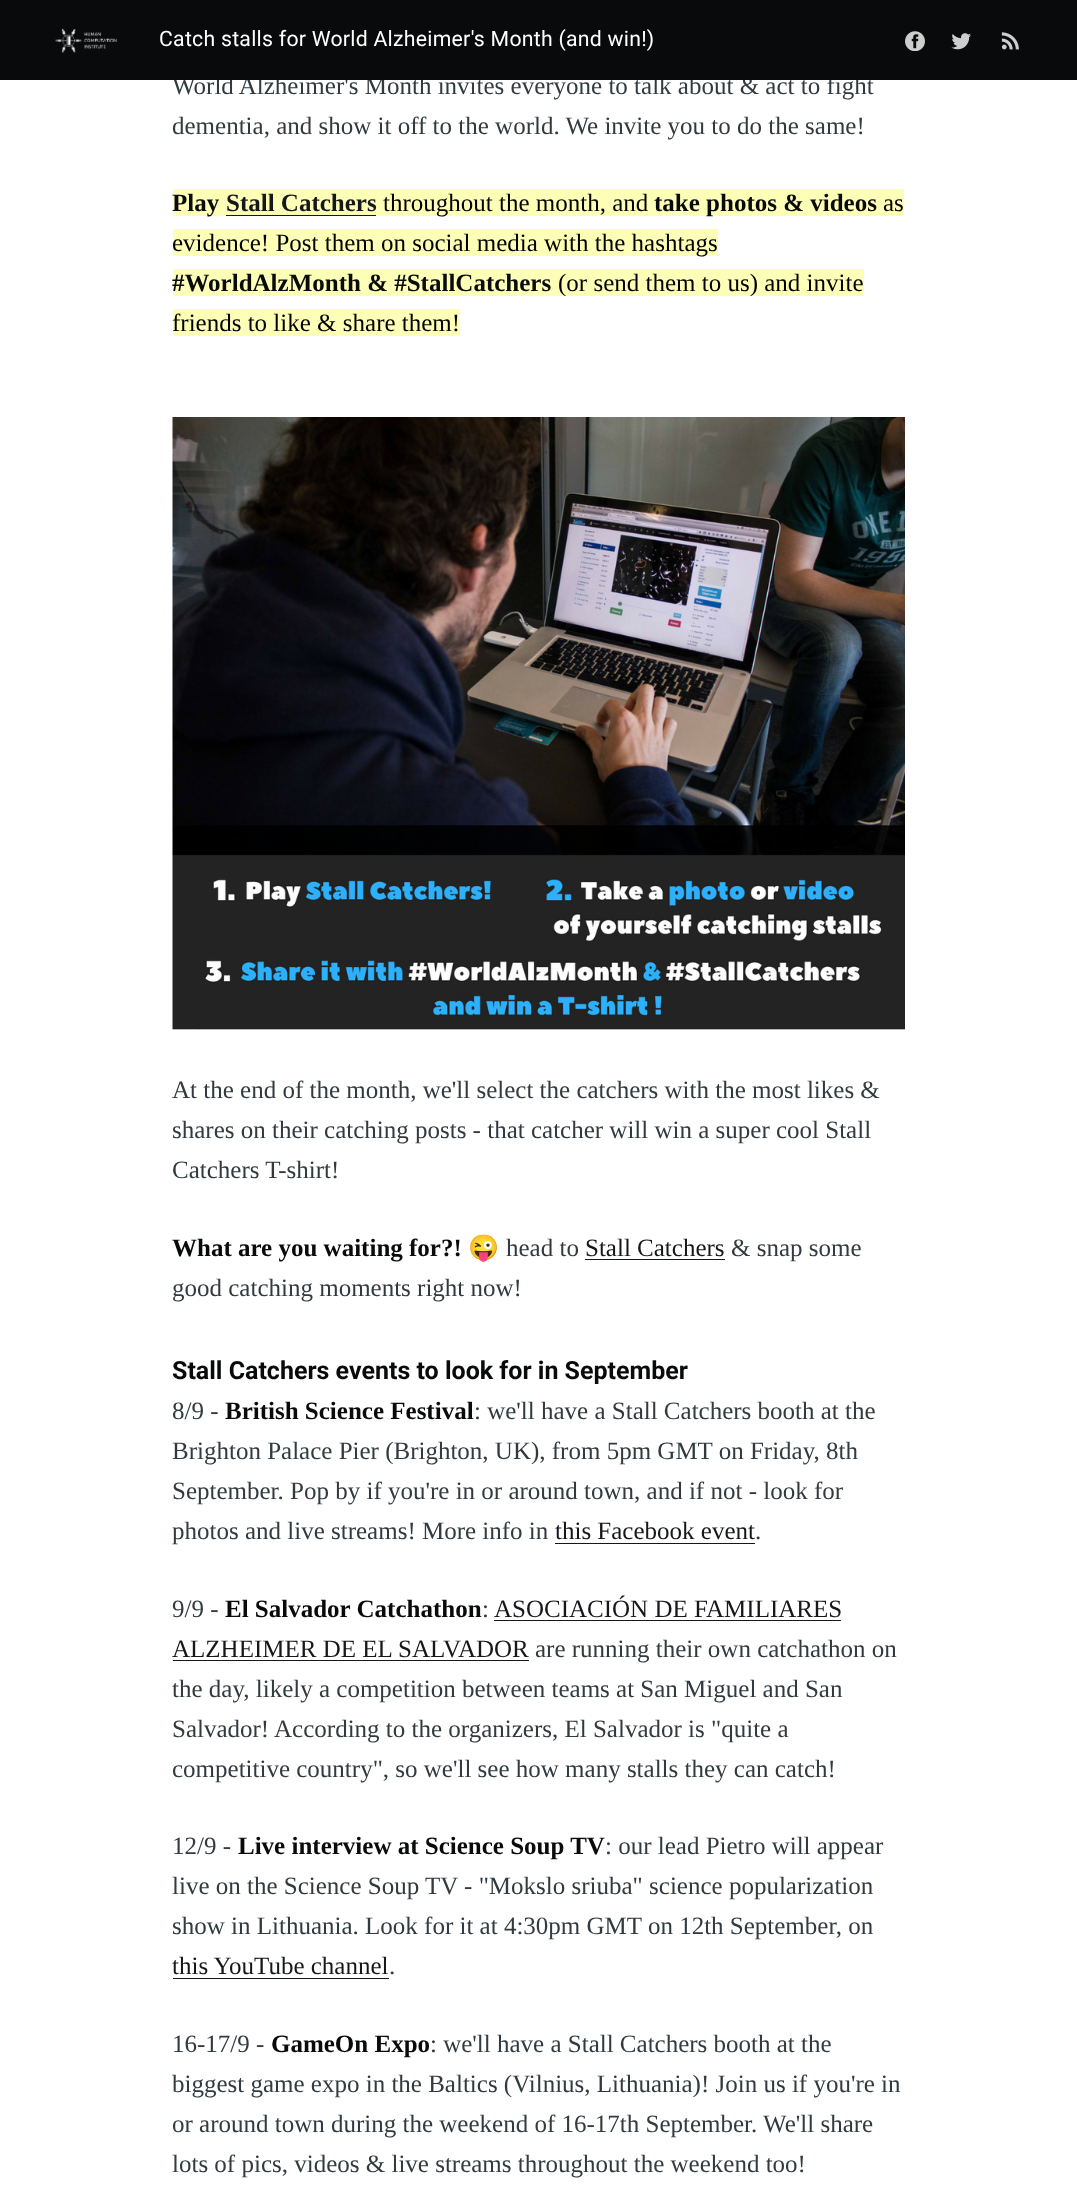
<svg xmlns="http://www.w3.org/2000/svg" xmlns:xlink="http://www.w3.org/1999/xlink" width="1077" height="2207" viewBox="0 0 1077 2207">
<style>
.cls-1{font:25px Liberation Serif;fill:#313b3f}
.cls-2{font:21.25px Roboto;letter-spacing:0.25px;fill:#ffffff}
.cls-3{font:bold 25px Liberation Serif;fill:#090a0b}
.cls-4{font:bold 25px Liberation Serif;fill:#15171a}
.cls-5{font:25px Liberation Serif;fill:#000000}
.cls-6{font:bold 25px Noto Color Emoji;fill:#090a0b}
.cls-7{font:25px Liberation Serif;fill:#15171a}
.cls-8{font:bold 25px Roboto;fill:#090a0b}
</style>
<rect width="100%" height="100%" fill="#ffffff"/>
<rect fill="#fdffb6" x="173" y="189" width="53" height="27"/>
<rect fill="#fdffb6" x="226" y="189" width="150" height="26"/>
<rect fill="#fdffb6" x="376" y="189" width="528" height="27"/>
<rect fill="#15171a" x="226" y="215" width="150" height="1"/>
<rect fill="#fdffb6" x="173" y="229" width="545" height="27"/>
<rect fill="#fdffb6" x="173" y="269" width="691" height="27"/>
<rect fill="#fdffb6" x="173" y="309" width="287" height="27"/>
<image xlink:href="image4.png" x="172" y="417" width="733" height="613"/>
<rect fill="#15171a" x="585" y="1259" width="140" height="1"/>
<rect fill="#15171a" x="555" y="1543" width="200" height="1"/>
<rect fill="#15171a" x="494" y="1620" width="347" height="1"/>
<rect fill="#15171a" x="173" y="1660" width="356" height="1"/>
<rect fill="#15171a" x="173" y="1978" width="216" height="1"/>
<text class="cls-1" x="172" y="94">World Alzheimer's Month invites everyone to talk about &amp; act to fight</text>
<rect fill="#090a0b" x="0" y="0" width="1077" height="80"/>
<image xlink:href="image0.png" x="55" y="29" width="62" height="24"/>
<image xlink:href="image3.png" x="1001" y="32" width="18" height="18"/>
<image xlink:href="image2.png" x="951" y="33" width="20" height="17"/>
<image xlink:href="image1.png" x="905" y="31" width="20" height="20"/>
<text class="cls-2" x="159" y="46">Catch stalls for World Alzheimer's Month (and win!)</text>
<text class="cls-1" x="172" y="134">dementia, and show it off to the world. We invite you to do the same!</text>
<text class="cls-3" x="172" y="211">Play</text>
<text class="cls-4" x="226" y="211">Stall Catchers</text>
<text class="cls-5" x="383" y="211">throughout the month, and</text>
<text class="cls-3" x="654" y="211">take photos &amp; videos</text>
<text class="cls-5" x="883" y="211">as</text>
<text class="cls-5" x="172" y="251">evidence! Post them on social media with the hashtags</text>
<text class="cls-3" x="172" y="291">#WorldAlzMonth &amp; #StallCatchers</text>
<text class="cls-5" x="558" y="291">(or send them to us) and invite</text>
<text class="cls-5" x="172" y="331">friends to like &amp; share them!</text>
<text class="cls-1"><tspan x="172" y="1098">At the end of the month, we'll select the catchers with the most likes &amp;</tspan><tspan x="172" y="1138">shares on their catching posts - that catcher will win a super cool Stall</tspan><tspan x="172" y="1178">Catchers T-shirt!</tspan></text>
<text class="cls-3" x="172" y="1256">What are you waiting for?!</text>
<text class="cls-6" x="468" y="1256">😜</text>
<text class="cls-1" x="506" y="1256">head to</text>
<text class="cls-7" x="585" y="1256">Stall Catchers</text>
<text class="cls-1" x="731" y="1256">&amp; snap some</text>
<text class="cls-1" x="172" y="1296">good catching moments right now!</text>
<text class="cls-8" x="172" y="1379">Stall Catchers events to look for in September</text>
<text class="cls-1" x="172" y="1419">8/9 -</text>
<text class="cls-3" x="225" y="1419">British Science Festival</text>
<text class="cls-1" x="474" y="1419">: we'll have a Stall Catchers booth at the</text>
<text class="cls-1"><tspan x="172" y="1459">Brighton Palace Pier (Brighton, UK), from 5pm GMT on Friday, 8th</tspan><tspan x="172" y="1499">September. Pop by if you're in or around town, and if not - look for</tspan><tspan x="172" y="1539">photos and live streams! More info in</tspan></text>
<text class="cls-7" x="555" y="1539">this Facebook event</text>
<text class="cls-1" x="755" y="1539">.</text>
<text class="cls-1" x="172" y="1617">9/9 -</text>
<text class="cls-3" x="225" y="1617">El Salvador Catchathon</text>
<text class="cls-1" x="482" y="1617">:</text>
<text class="cls-7" x="494" y="1617">ASOCIACIÓN DE FAMILIARES</text>
<text class="cls-7" x="172" y="1657">ALZHEIMER DE EL SALVADOR</text>
<text class="cls-1" x="535" y="1657">are running their own catchathon on</text>
<text class="cls-1"><tspan x="172" y="1697">the day, likely a competition between teams at San Miguel and San</tspan><tspan x="172" y="1737">Salvador! According to the organizers, El Salvador is "quite a</tspan><tspan x="172" y="1777">competitive country", so we'll see how many stalls they can catch!</tspan></text>
<text class="cls-1" x="172" y="1854">12/9 -</text>
<text class="cls-3" x="238" y="1854">Live interview at Science Soup TV</text>
<text class="cls-1" x="605" y="1854">: our lead Pietro will appear</text>
<text class="cls-1"><tspan x="172" y="1894">live on the Science Soup TV - "Mokslo sriuba" science popularization</tspan><tspan x="172" y="1934">show in Lithuania. Look for it at 4:30pm GMT on 12th September, on</tspan></text>
<text class="cls-7" x="172" y="1974">this YouTube channel</text>
<text class="cls-1" x="389" y="1974">.</text>
<text class="cls-1" x="172" y="2052">16-17/9 -</text>
<text class="cls-3" x="271" y="2052">GameOn Expo</text>
<text class="cls-1" x="430" y="2052">: we'll have a Stall Catchers booth at the</text>
<text class="cls-1"><tspan x="172" y="2092">biggest game expo in the Baltics (Vilnius, Lithuania)! Join us if you're in</tspan><tspan x="172" y="2132">or around town during the weekend of 16-17th September. We'll share</tspan><tspan x="172" y="2172">lots of pics, videos &amp; live streams throughout the weekend too!</tspan></text>
</svg>
